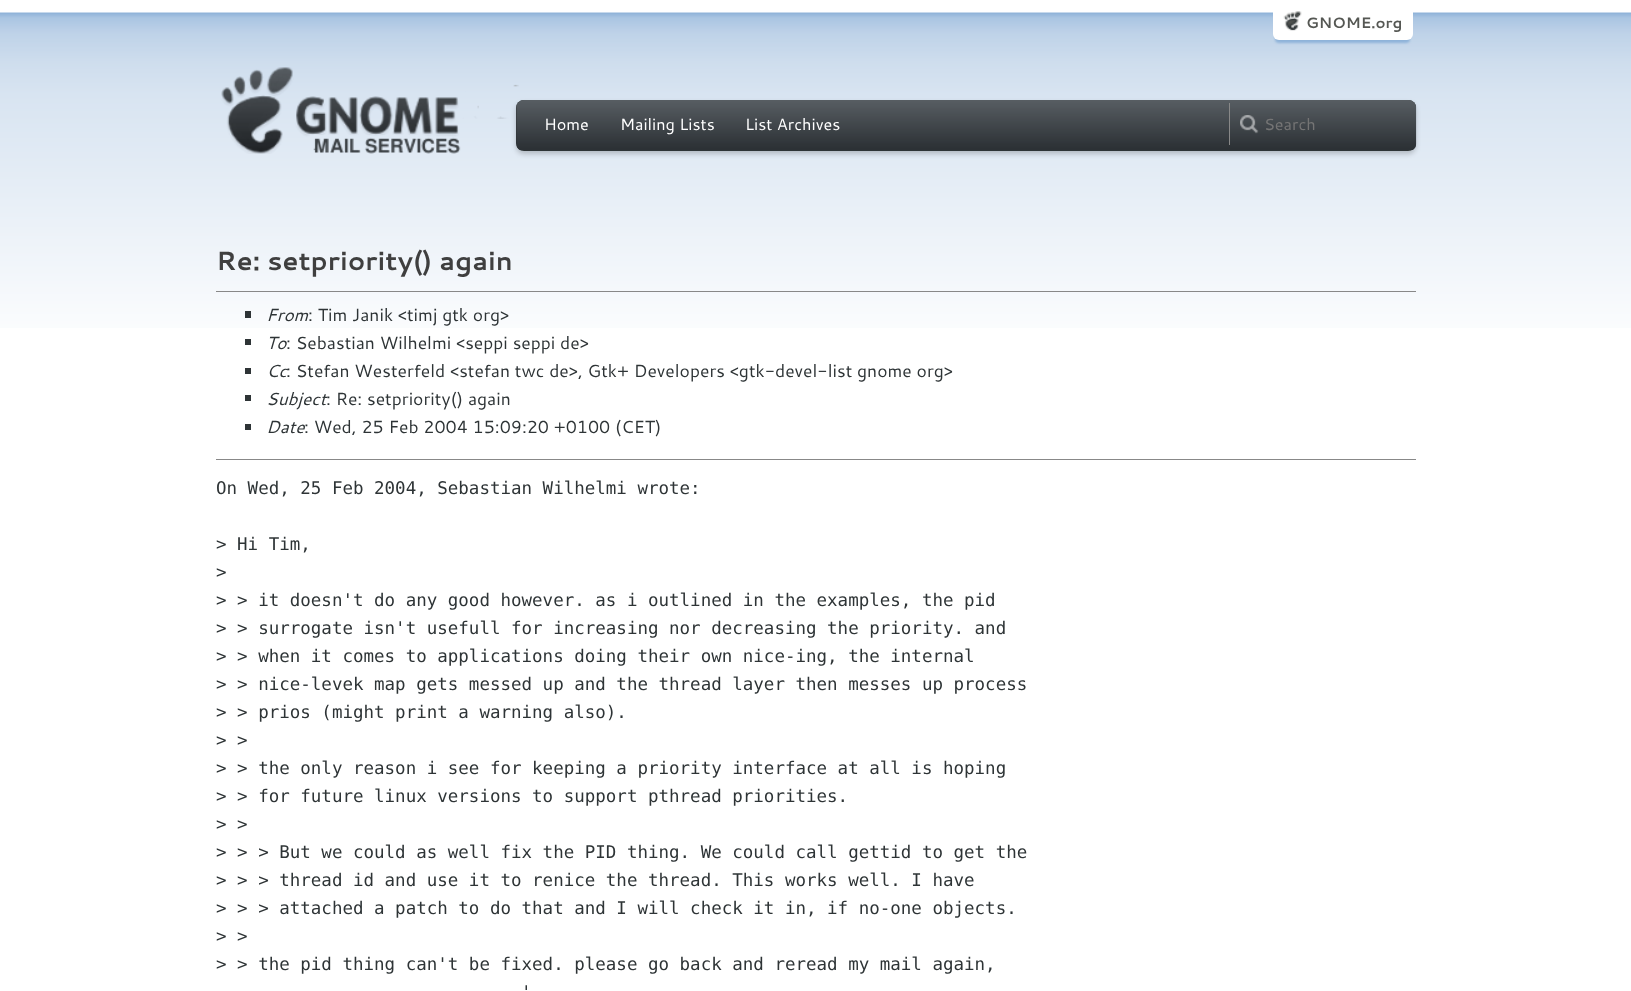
<svg xmlns="http://www.w3.org/2000/svg" xmlns:xlink="http://www.w3.org/1999/xlink" width="1631" height="991" viewBox="0 0 1631 991">
<style>
.cls-1{font:bold 15px Cantarell;fill:#555753}
.cls-2{font:16.25px Cantarell;fill:#ffffff}
.cls-3{font:16.25px Cantarell;fill:#757575}
.cls-4{font:bold 26.25px Cantarell;fill:#3f3f3f}
.cls-5{font:italic 17.5px Cantarell;fill:#2e3436}
.cls-6{font:17.5px Cantarell;fill:#2e3436}
.cls-7{font:17.5px DejaVu Sans Mono;fill:#2e3436}
</style>
<rect width="100%" height="100%" fill="#ffffff"/>
<image xlink:href="image0.png" x="0" y="12" width="1631" height="316"/>
<rect fill="#8fb3d9" filter="blur(1px)" x="1275" y="13" width="135" height="30" rx="4"/>
<rect fill="#ffffff" x="1273" y="5" width="140" height="35" rx="6"/>
<image xlink:href="image1.png" x="1283" y="11" width="19" height="20"/>
<image xlink:href="image2.png" x="221" y="67" width="298" height="87"/>
<rect fill="#000000" fill-opacity="0.2" filter="blur(2.5px)" x="516" y="103" width="900" height="51" rx="8"/>
<rect fill="#2e3436" x="516" y="100" width="900" height="51" rx="8"/>
<image xlink:href="image3.png" x="516" y="100" width="901" height="50"/>
<image xlink:href="image4.png" x="1240" y="115" width="19" height="19"/>
<rect fill="#888888" x="1229" y="103" width="1" height="42"/>
<rect fill="#888888" x="216" y="291" width="1200" height="1"/>
<rect fill="#2e3436" x="245" y="311" width="6" height="7"/>
<rect fill="#2e3436" x="245" y="339" width="6" height="6"/>
<rect fill="#2e3436" x="245" y="368" width="6" height="6"/>
<rect fill="#2e3436" x="245" y="395" width="6" height="6"/>
<rect fill="#2e3436" x="245" y="424" width="6" height="6"/>
<rect fill="#888888" x="216" y="459" width="1200" height="1"/>
<text class="cls-1" x="1306" y="28">GNOME.org</text>
<text class="cls-2" x="544" y="130">Home</text>
<text class="cls-2" x="620" y="130">Mailing Lists</text>
<text class="cls-2" x="745" y="130">List Archives</text>
<text class="cls-3" x="1264" y="130">Search</text>
<text class="cls-4" x="216" y="270">Re: setpriority() again</text>
<text class="cls-5" x="266" y="321">From</text>
<text class="cls-6" x="308" y="321">: Tim Janik &lt;timj gtk org&gt;</text>
<text class="cls-5" x="266" y="349">To</text>
<text class="cls-6" x="286" y="349">: Sebastian Wilhelmi &lt;seppi seppi de&gt;</text>
<text class="cls-5" x="266" y="377">Cc</text>
<text class="cls-6" x="286" y="377">: Stefan Westerfeld &lt;stefan twc de&gt;, Gtk+ Developers &lt;gtk-devel-list gnome org&gt;</text>
<text class="cls-5" x="266" y="405">Subject</text>
<text class="cls-6" x="326" y="405">: Re: setpriority() again</text>
<text class="cls-5" x="266" y="433">Date</text>
<text class="cls-6" x="304" y="433">: Wed, 25 Feb 2004 15:09:20 +0100 (CET)</text>
<text class="cls-7" x="216" y="494">On Wed, 25 Feb 2004, Sebastian Wilhelmi wrote:</text>
<text class="cls-7"><tspan x="216" y="550">&gt; Hi Tim,</tspan><tspan x="216" y="578">&gt;</tspan><tspan x="216" y="606">&gt; &gt; it doesn't do any good however. as i outlined in the examples, the pid</tspan><tspan x="216" y="634">&gt; &gt; surrogate isn't usefull for increasing nor decreasing the priority. and</tspan><tspan x="216" y="662">&gt; &gt; when it comes to applications doing their own nice-ing, the internal</tspan><tspan x="216" y="690">&gt; &gt; nice-levek map gets messed up and the thread layer then messes up process</tspan><tspan x="216" y="718">&gt; &gt; prios (might print a warning also).</tspan><tspan x="216" y="746">&gt; &gt;</tspan><tspan x="216" y="774">&gt; &gt; the only reason i see for keeping a priority interface at all is hoping</tspan><tspan x="216" y="802">&gt; &gt; for future linux versions to support pthread priorities.</tspan><tspan x="216" y="830">&gt; &gt;</tspan><tspan x="216" y="858">&gt; &gt; &gt; But we could as well fix the PID thing. We could call gettid to get the</tspan><tspan x="216" y="886">&gt; &gt; &gt; thread id and use it to renice the thread. This works well. I have</tspan><tspan x="216" y="914">&gt; &gt; &gt; attached a patch to do that and I will check it in, if no-one objects.</tspan><tspan x="216" y="942">&gt; &gt;</tspan><tspan x="216" y="970">&gt; &gt; the pid thing can't be fixed. please go back and reread my mail again,</tspan></text>
<text class="cls-7" x="521" y="998">'</text>
</svg>
